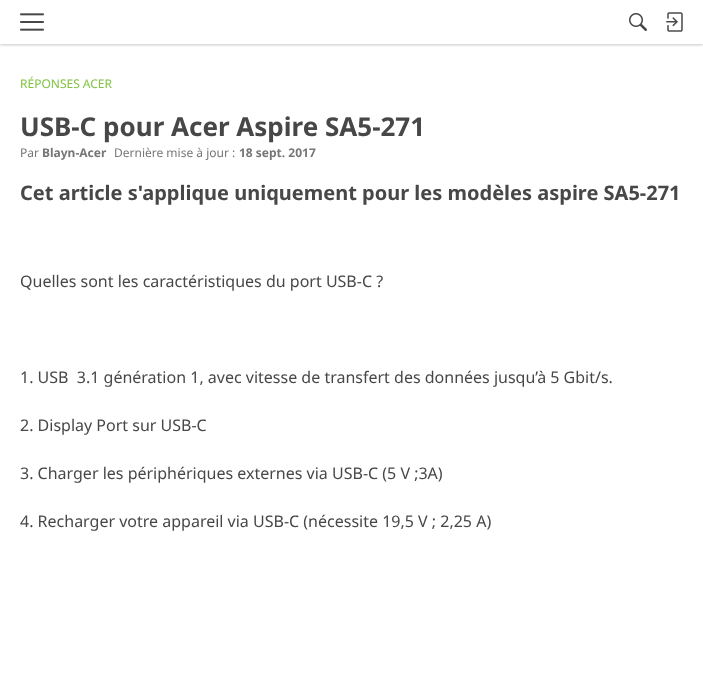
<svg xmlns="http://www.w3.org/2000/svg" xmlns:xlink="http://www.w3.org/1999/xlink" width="703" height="690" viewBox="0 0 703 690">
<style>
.cls-1{font:12px Noto Sans;fill:#80c343}
.cls-2{font:bold 26px Noto Sans;fill:#474747}
.cls-3{font:12px Noto Sans;fill:#767676}
.cls-4{font:bold 12px Noto Sans;fill:#767676}
.cls-5{font:bold 20px Noto Sans;fill:#474747}
.cls-6{font:16px Noto Sans;fill:#474747}
</style>
<defs>
<clipPath id="clip1"><rect x="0" y="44" width="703" height="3"/></clipPath>
</defs>
<rect width="100%" height="100%" fill="#ffffff"/>
<g clip-path="url(#clip1)">
<rect fill="#000000" fill-opacity="0.22" filter="blur(1.5px)" x="0" y="1" width="703" height="44"/>
</g>
<image xlink:href="image0.png" x="20" y="13" width="24" height="18"/>
<image xlink:href="image1.png" x="629" y="13" width="18" height="18"/>
<image xlink:href="image2.png" x="666" y="12" width="17" height="20"/>
<text class="cls-1" x="20" y="88">RÉPONSES ACER</text>
<text class="cls-2" x="20" y="136">USB-C pour Acer Aspire SA5-271</text>
<text class="cls-3" x="20" y="157">Par</text>
<text class="cls-4" x="42" y="157">Blayn-Acer</text>
<text class="cls-3" x="114" y="157">Dernière mise à jour :</text>
<text class="cls-4" x="239" y="157">18 sept. 2017</text>
<text class="cls-5" x="20" y="200">Cet article s'applique uniquement pour les modèles aspire SA5-271</text>
<text class="cls-6" x="20" y="287">Quelles sont les caractéristiques du port USB-C ?</text>
<text class="cls-6" xml:space="preserve" x="20" y="383">1. USB  3.1 génération 1, avec vitesse de transfert des données jusqu’à 5 Gbit/s.</text>
<text class="cls-6" x="20" y="431">2. Display Port sur USB-C</text>
<text class="cls-6" x="20" y="479">3. Charger les périphériques externes via USB-C (5 V ;3A)</text>
<text class="cls-6" x="20" y="527">4. Recharger votre appareil via USB-C (nécessite 19,5 V ; 2,25 A)</text>
</svg>
